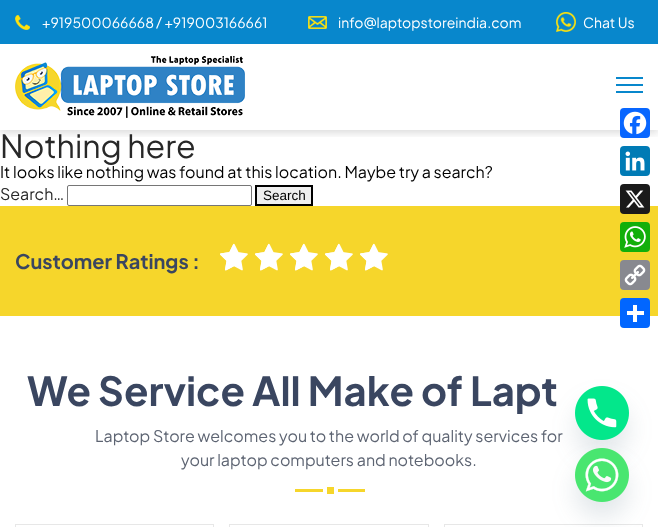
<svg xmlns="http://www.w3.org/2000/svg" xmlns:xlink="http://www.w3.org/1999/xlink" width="658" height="527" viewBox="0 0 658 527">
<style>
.cls-1{font:14px Plus Jakarta Sans;fill:#ffffff}
.cls-2{font:32px Plus Jakarta Sans;fill:#282828}
.cls-3{font:16px Plus Jakarta Sans;fill:#000000}
.cls-4{font:16px Plus Jakarta Sans;fill:#282828}
.cls-5{font:13.5px Liberation Sans;fill:#000000}
.cls-6{font:bold 20px Plus Jakarta Sans;fill:#3a4660}
.cls-7{font:bold 40px Plus Jakarta Sans;fill:#3a4660}
.cls-8{font:16px Plus Jakarta Sans;fill:#5d6472}
</style>
<defs>
<clipPath id="clip1"><rect x="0" y="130" width="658" height="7"/></clipPath>
</defs>
<rect width="100%" height="100%" fill="#ffffff"/>
<g clip-path="url(#clip1)">
<rect fill="#000000" fill-opacity="0.14" filter="blur(4px)" x="0" y="47" width="658" height="86"/>
</g>
<rect fill="#0887cc" x="0" y="0" width="658" height="44"/>
<image xlink:href="image0.png" x="15" y="15" width="15" height="15"/>
<image xlink:href="image1.png" x="308" y="16" width="19" height="13"/>
<image xlink:href="image2.png" x="556" y="12" width="20" height="20"/>
<image xlink:href="image3.png" x="15" y="56" width="230" height="62"/>
<rect fill="#0887cc" x="616" y="77" width="27" height="2"/>
<rect fill="#0887cc" x="616" y="84" width="27" height="2"/>
<rect fill="#0887cc" x="616" y="91" width="27" height="2"/>
<rect fill="#0866ff" x="620" y="108" width="30" height="30" rx="4"/>
<image xlink:href="image4.png" x="623" y="111" width="24" height="24"/>
<rect fill="#007bb5" x="620" y="146" width="30" height="30" rx="4"/>
<image xlink:href="image5.png" x="625" y="151" width="20" height="20"/>
<rect fill="#f6d62b" x="0" y="206" width="658" height="110"/>
<rect fill="#1a1a1a" x="620" y="184" width="30" height="30" rx="4"/>
<image xlink:href="image6.png" x="625" y="190" width="20" height="18"/>
<rect fill="#12af0a" x="620" y="222" width="30" height="30" rx="4"/>
<image xlink:href="image7.png" x="624" y="226" width="22" height="22"/>
<rect fill="#888990" x="620" y="260" width="30" height="30" rx="4"/>
<image xlink:href="image8.png" x="624" y="264" width="22" height="22"/>
<rect fill="#0166ff" x="620" y="298" width="30" height="30" rx="4"/>
<rect fill="#ffffff" x="633" y="305" width="4" height="17"/>
<rect fill="#ffffff" x="627" y="311" width="17" height="4"/>
<rect fill="none" stroke="#767676" x="67.5" y="185.5" width="184" height="20" rx="1.5"/>
<rect fill="#efefef" stroke="#000000" stroke-width="2" x="256" y="186" width="56" height="19"/>
<image xlink:href="image9.png" x="220" y="243" width="28" height="28"/>
<image xlink:href="image10.png" x="220" y="243" width="14" height="28"/>
<image xlink:href="image9.png" x="255" y="243" width="28" height="28"/>
<image xlink:href="image10.png" x="255" y="243" width="14" height="28"/>
<image xlink:href="image9.png" x="290" y="243" width="28" height="28"/>
<image xlink:href="image10.png" x="290" y="243" width="14" height="28"/>
<image xlink:href="image9.png" x="325" y="243" width="28" height="28"/>
<image xlink:href="image10.png" x="325" y="243" width="14" height="28"/>
<image xlink:href="image9.png" x="360" y="243" width="28" height="28"/>
<image xlink:href="image10.png" x="360" y="243" width="14" height="28"/>
<image xlink:href="image11.png" x="295" y="487" width="70" height="7"/>
<rect fill="none" stroke="#e7e7e7" x="15.5" y="524.5" width="198" height="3"/>
<rect fill="none" stroke="#e7e7e7" x="229.5" y="524.5" width="199" height="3"/>
<rect fill="none" stroke="#e7e7e7" x="444.5" y="524.5" width="198" height="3"/>
<rect fill="#49687e" fill-opacity="0.16" filter="blur(12px)" x="575" y="402" width="54" height="54" rx="27"/>
<image xlink:href="image12.png" x="575" y="386" width="54" height="54"/>
<rect fill="#49687e" fill-opacity="0.16" filter="blur(12px)" x="575" y="464" width="54" height="54" rx="27"/>
<image xlink:href="image13.png" x="575" y="448" width="54" height="54"/>
<text class="cls-1" x="42" y="28">+919500066668</text>
<text class="cls-1" x="156" y="28">/ +919003166661</text>
<text class="cls-1" x="338" y="28">info@laptopstoreindia.com</text>
<text class="cls-1" x="583" y="28">Chat Us</text>
<text class="cls-2" x="0" y="158">Nothing here</text>
<text class="cls-3" x="0" y="178">It looks like nothing was found at this location. Maybe try a search?</text>
<text class="cls-4" x="0" y="200">Search…</text>
<text class="cls-5" x="263" y="200">Search</text>
<text class="cls-6" x="15" y="269">Customer Ratings :</text>
<text class="cls-7" x="27" y="406">We Service All Make of Lapt</text>
<text class="cls-8" x="95" y="442">Laptop Store welcomes you to the world of quality services for</text>
<text class="cls-8" x="181" y="466">your laptop computers and notebooks.</text>
</svg>
